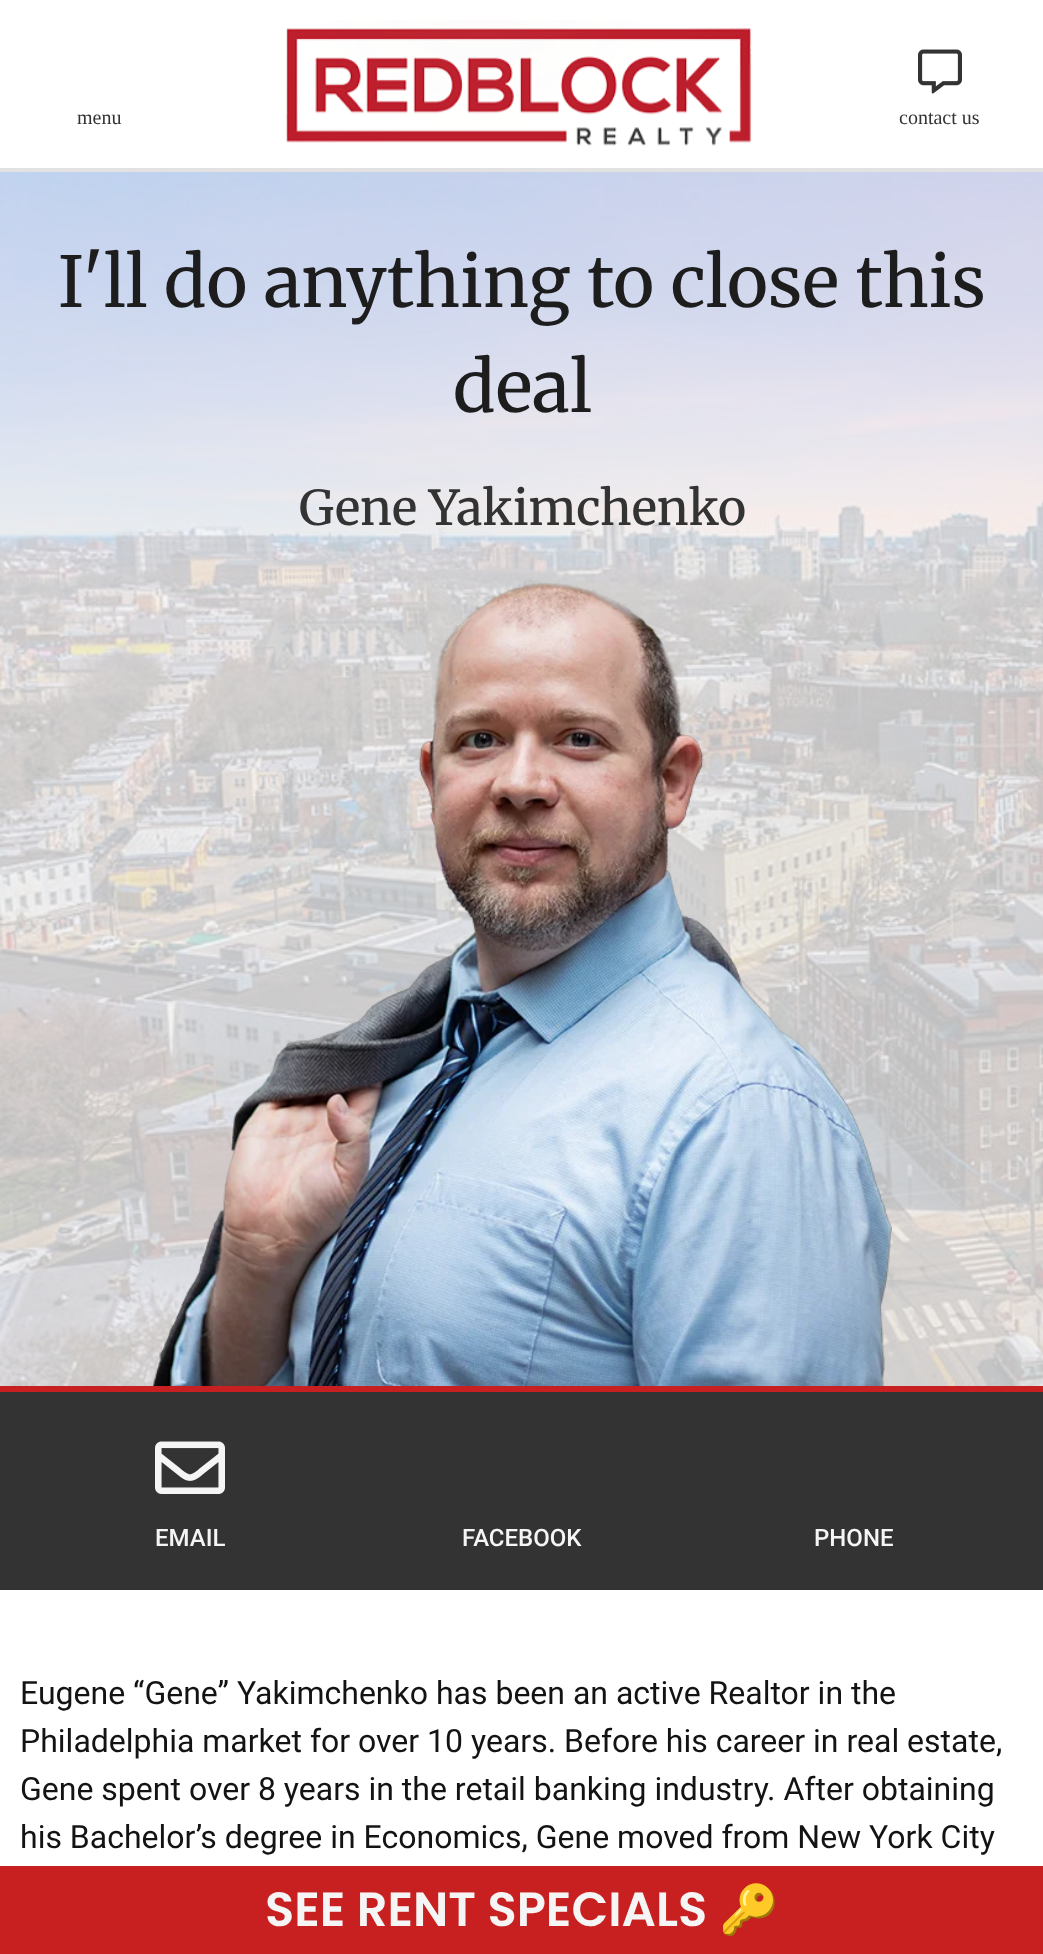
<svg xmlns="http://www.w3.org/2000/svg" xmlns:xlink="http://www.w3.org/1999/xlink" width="1043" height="1954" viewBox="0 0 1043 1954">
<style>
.cls-1{font:20px Liberation Serif;fill:#333333}
.cls-2{font:70px Merriweather;fill:#1d1d1d}
.cls-3{font:500 48px Merriweather;fill:#333333}
.cls-4{font:500 24px Roboto;fill:#f5f5f5}
.cls-5{font:32px Roboto;fill:#131313}
.cls-6{font:600 48px Poppins;fill:#f5f5f5}
.cls-7{font:bold 48px Noto Color Emoji;fill:#f5f5f5}
</style>
<rect width="100%" height="100%" fill="#ffffff"/>
<rect fill="#e2e2e2" x="0" y="168" width="1043" height="4"/>
<image xlink:href="image0.png" x="286" y="20" width="466" height="126"/>
<image xlink:href="image1.png" x="918" y="49" width="44" height="45"/>
<image xlink:href="image2.png" x="0" y="172" width="1043" height="1214"/>
<image xlink:href="image3.png" x="152" y="580" width="740" height="806"/>
<rect fill="#333333" x="0" y="1392" width="1043" height="198"/>
<rect fill="#c82021" x="0" y="1386" width="1043" height="6"/>
<image xlink:href="image4.png" x="155" y="1441" width="70" height="53"/>
<rect fill="#c82021" x="0" y="1866" width="1043" height="88"/>
<text class="cls-1" x="77" y="124">menu</text>
<text class="cls-1" x="899" y="124">contact us</text>
<text class="cls-2" x="58" y="307">I'll do anything to close this</text>
<text class="cls-2" x="453" y="412">deal</text>
<text class="cls-3" x="299" y="525">Gene Yakimchenko</text>
<text class="cls-4" x="155" y="1546">EMAIL</text>
<text class="cls-4" x="462" y="1546">FACEBOOK</text>
<text class="cls-4" x="814" y="1546">PHONE</text>
<text class="cls-5"><tspan x="20" y="1704">Eugene “Gene” Yakimchenko has been an active Realtor in the</tspan><tspan x="20" y="1752">Philadelphia market for over 10 years. Before his career in real estate,</tspan><tspan x="20" y="1800">Gene spent over 8 years in the retail banking industry. After obtaining</tspan><tspan x="20" y="1848">his Bachelor’s degree in Economics, Gene moved from New York City</tspan></text>
<text class="cls-6" x="265" y="1926">SEE RENT SPECIALS</text>
<text class="cls-7" x="719" y="1926">🔑</text>
</svg>
